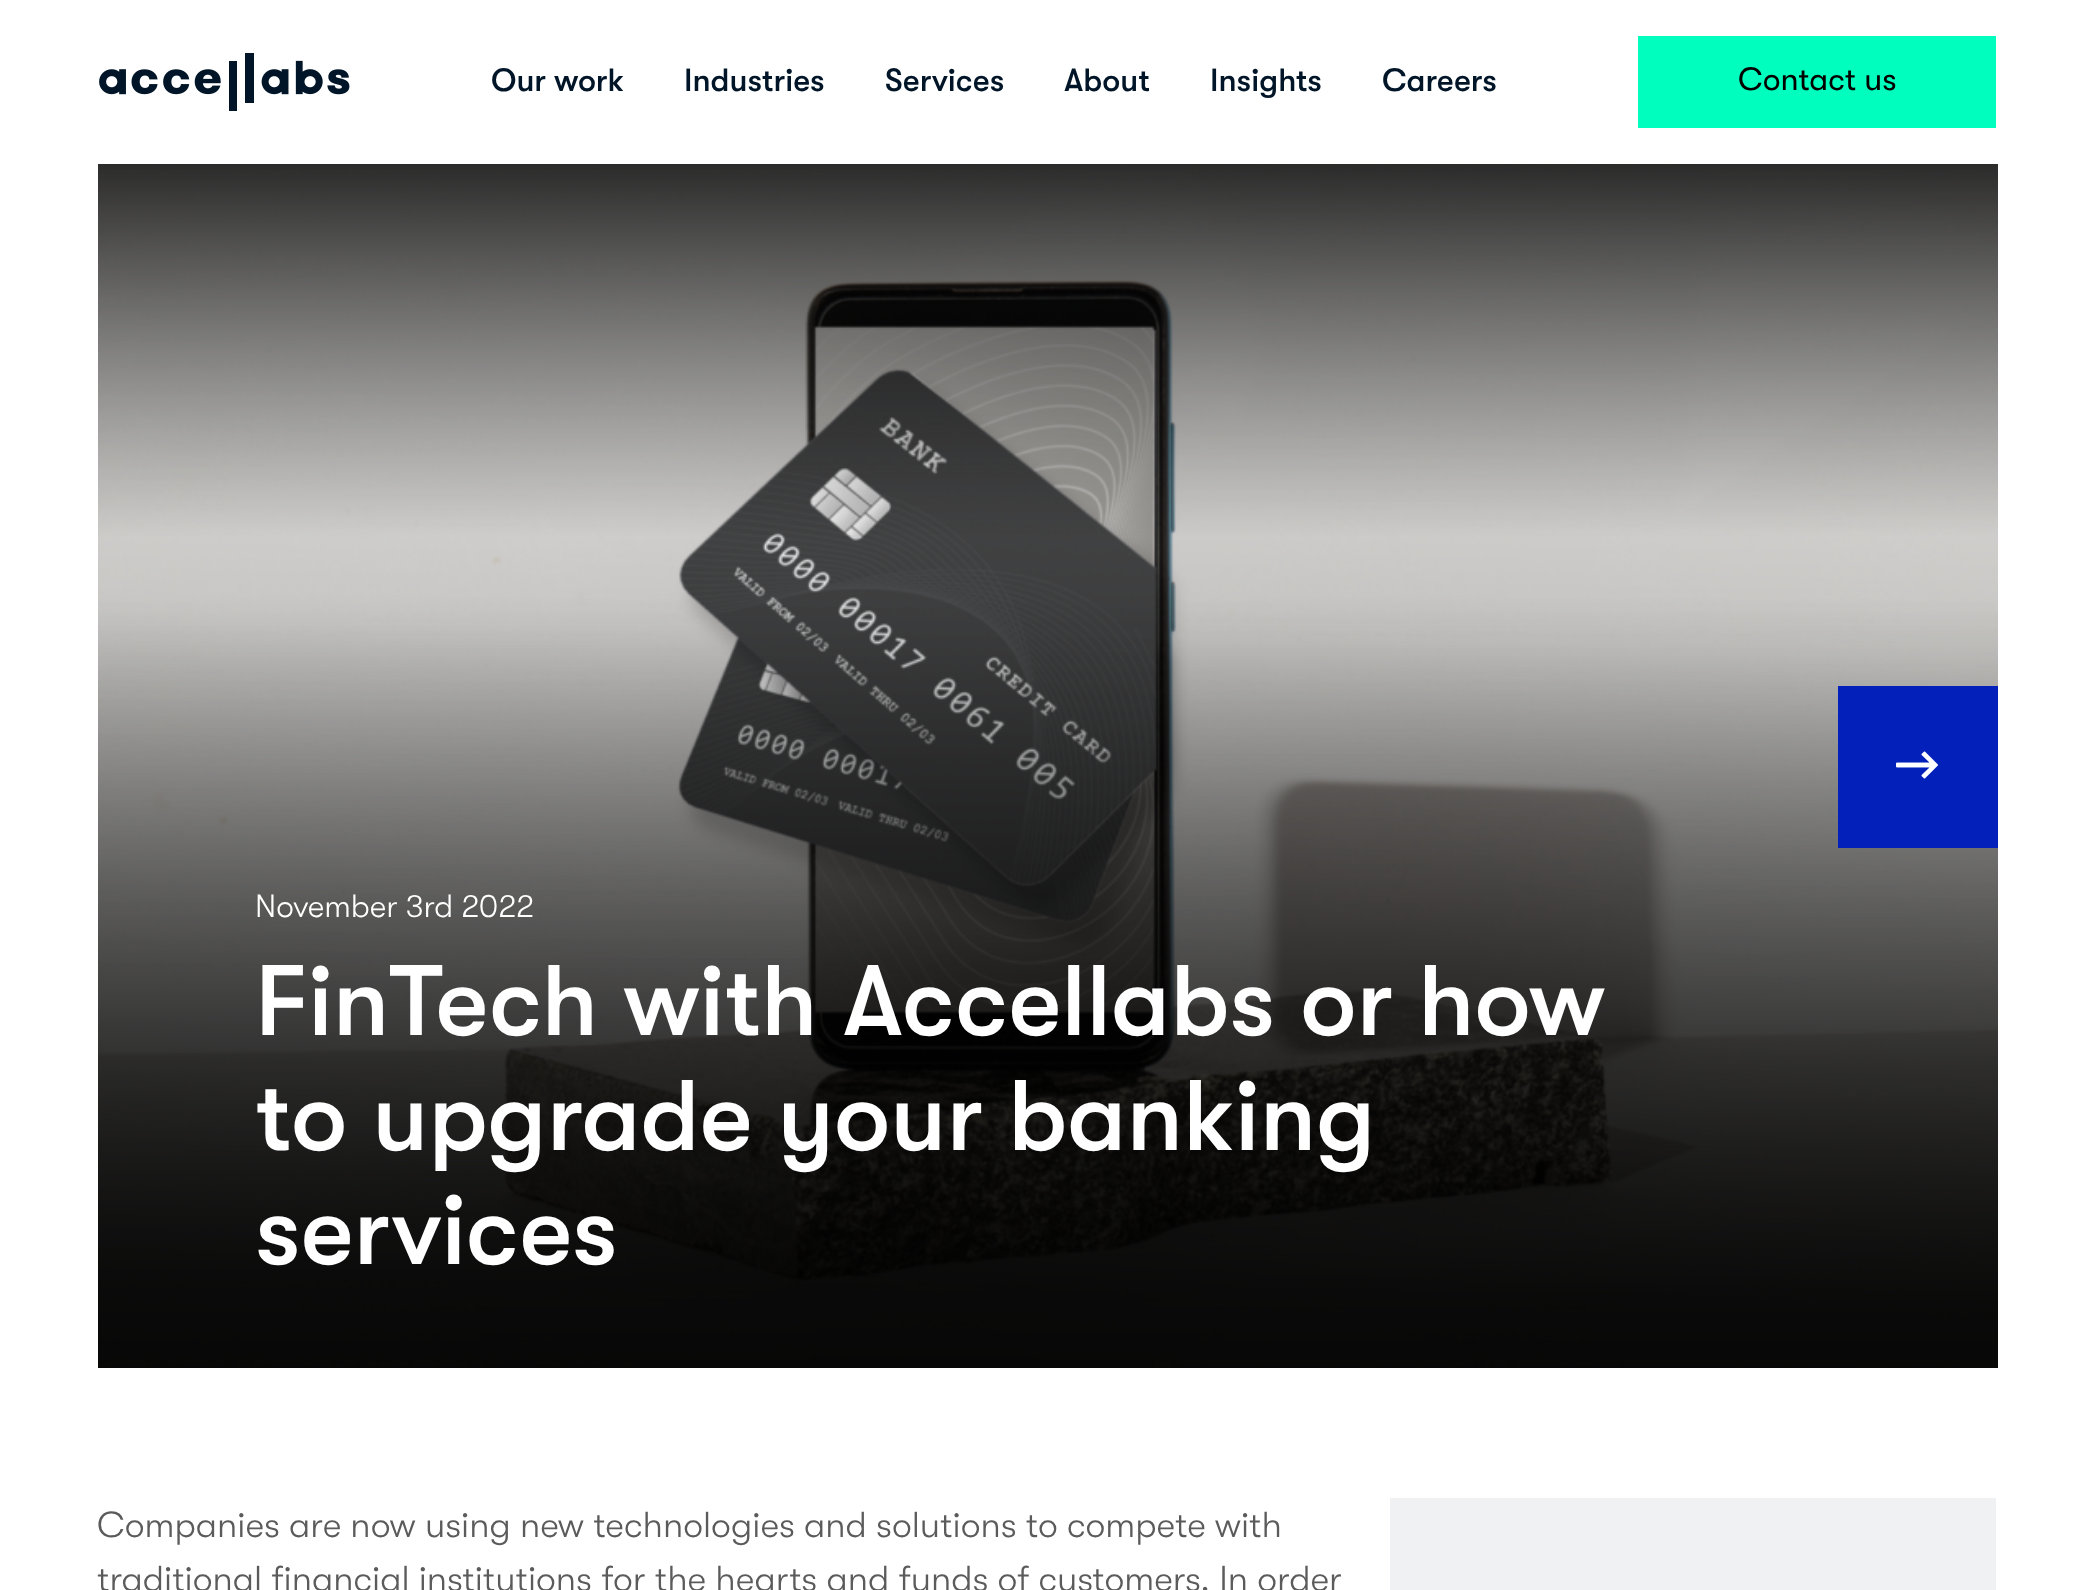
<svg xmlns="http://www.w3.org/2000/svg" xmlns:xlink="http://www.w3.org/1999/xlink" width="2093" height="1590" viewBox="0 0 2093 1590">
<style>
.cls-1{font:500 32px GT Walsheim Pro;fill:#001528}
.cls-2{font:32px GT Walsheim Pro;fill:#000000}
.cls-3{font:300 32px GT Walsheim Pro;fill:#ffffff}
.cls-4{font:500 100px GT Walsheim Pro;fill:#ffffff}
.cls-5{font:300 36px GT Walsheim Pro;fill:#5b5b5b}
</style>
<rect width="100%" height="100%" fill="#ffffff"/>
<image xlink:href="image0.png" x="99" y="53" width="251" height="58"/>
<rect fill="#00ffbe" x="1638" y="36" width="358" height="92"/>
<image xlink:href="image1.png" x="98" y="164" width="1900" height="1204"/>
<rect fill="#0420bb" x="1838" y="686" width="160" height="162"/>
<image xlink:href="image2.png" x="1896" y="751" width="42" height="28"/>
<rect fill="#eff1f3" x="1390" y="1498" width="606" height="92"/>
<text class="cls-1" x="491" y="91">Our work</text>
<text class="cls-1" x="684" y="91">Industries</text>
<text class="cls-1" x="885" y="91">Services</text>
<text class="cls-1" x="1064" y="91">About</text>
<text class="cls-1" x="1210" y="91">Insights</text>
<text class="cls-1" x="1382" y="91">Careers</text>
<text class="cls-2" x="1738" y="90">Contact us</text>
<text class="cls-3" x="255" y="917">November 3rd 2022</text>
<text class="cls-4"><tspan x="255" y="1035">FinTech with Accellabs or how</tspan><tspan x="255" y="1150">to upgrade your banking</tspan><tspan x="255" y="1264">services</tspan></text>
<text class="cls-5"><tspan x="97" y="1537">Companies are now using new technologies and solutions to compete with</tspan><tspan x="97" y="1591">traditional financial institutions for the hearts and funds of customers. In order</tspan></text>
</svg>
